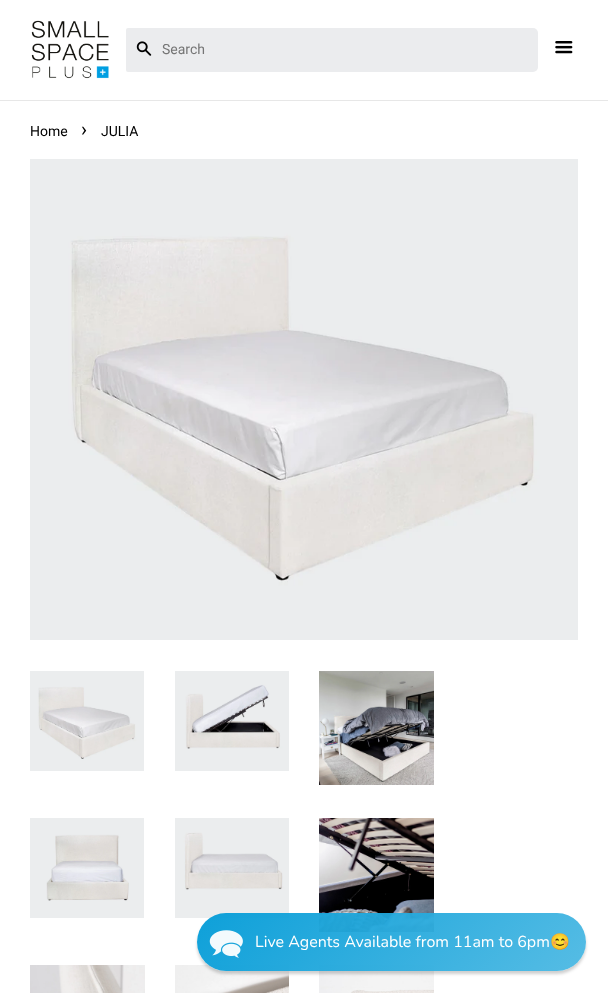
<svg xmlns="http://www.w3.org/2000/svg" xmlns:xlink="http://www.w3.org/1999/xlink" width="608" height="993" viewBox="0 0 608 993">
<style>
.cls-1{font:14px Roboto;fill:#757575}
.cls-2{font:14px Roboto;fill:#000000}
.cls-3{font:20px Roboto;fill:#000000}
.cls-4{font:16px Nunito;fill:#ffffff}
.cls-5{font:16px Noto Color Emoji;fill:#ffffff}
</style>
<defs>
<clipPath id="clip1"><path d="M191 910H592V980H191ZM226 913H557C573 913 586 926 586 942C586 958 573 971 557 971H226C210 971 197 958 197 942C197 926 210 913 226 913Z" clip-rule="evenodd"/></clipPath>
<linearGradient id="g1" gradientUnits="userSpaceOnUse" x1="280" y1="830" x2="503" y2="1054"><stop offset="0" stop-color="#019bd7" stop-opacity="0.95"/><stop offset="1" stop-color="#4db9e3" stop-opacity="0.95"/></linearGradient>
</defs>
<rect width="100%" height="100%" fill="#ffffff"/>
<rect fill="#e7e7e7" x="0" y="100" width="608" height="1"/>
<image xlink:href="image0.png" x="31" y="20" width="78" height="59"/>
<rect fill="#ebecee" x="126" y="28" width="412" height="44" rx="5"/>
<rect fill="#ebecee" x="126" y="28" width="35" height="44" rx="2"/>
<image xlink:href="image1.png" x="136" y="41" width="16" height="15"/>
<image xlink:href="image2.png" x="555" y="41" width="18" height="13"/>
<image xlink:href="image3.png" x="30" y="159" width="548" height="481"/>
<image xlink:href="image4.png" x="30" y="671" width="114" height="100"/>
<image xlink:href="image5.png" x="175" y="671" width="114" height="100"/>
<image xlink:href="image6.png" x="319" y="671" width="115" height="114"/>
<image xlink:href="image7.png" x="30" y="818" width="114" height="100"/>
<image xlink:href="image8.png" x="175" y="818" width="114" height="100"/>
<image xlink:href="image9.png" x="319" y="818" width="115" height="114"/>
<image xlink:href="image10.png" x="30" y="965" width="115" height="28"/>
<image xlink:href="image11.png" x="175" y="965" width="114" height="28"/>
<image xlink:href="image12.png" x="319" y="965" width="115" height="28"/>
<g clip-path="url(#clip1)">
<rect fill="#000000" fill-opacity="0.19" filter="blur(1.5px)" x="197" y="916" width="389" height="58" rx="29"/>
</g>
<rect fill="url(#g1)" x="197" y="913" width="389" height="58" rx="29"/>
<image xlink:href="image13.png" x="209" y="930" width="34" height="28"/>
<text class="cls-1" x="162" y="54">Search</text>
<text class="cls-2" x="30" y="136">Home</text>
<text class="cls-3" x="81" y="136">›</text>
<text class="cls-2" x="101" y="136">JULIA</text>
<text class="cls-4" x="255" y="947">Live Agents Available from 11am to 6pm</text>
<text class="cls-5" x="550" y="947">😊</text>
</svg>
